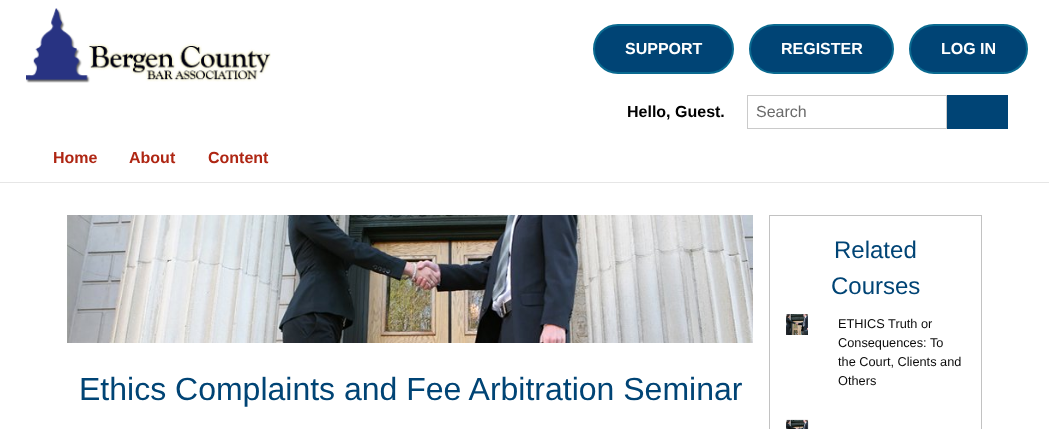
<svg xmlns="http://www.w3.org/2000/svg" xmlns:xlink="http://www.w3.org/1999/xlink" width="1049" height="429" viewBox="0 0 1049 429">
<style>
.cls-1{font:bold 16px Liberation Sans;fill:#ffffff}
.cls-2{font:bold 16px Liberation Sans;fill:#000000}
.cls-3{font:16px Liberation Sans;fill:#6a6a6a}
.cls-4{font:bold 16px Liberation Sans;fill:#af2613}
.cls-5{font:24px Liberation Sans;fill:#004475}
.cls-6{font:12.75px Liberation Sans;fill:#0a0a0a}
.cls-7{font:32px Liberation Sans;fill:#004475}
</style>
<rect width="100%" height="100%" fill="#ffffff"/>
<image xlink:href="image0.png" x="26" y="8" width="245" height="75"/>
<rect fill="#004475" stroke="#0a6a90" stroke-width="2" x="594" y="25" width="139" height="48" rx="24"/>
<rect fill="#004475" stroke="#0a6a90" stroke-width="2" x="750" y="25" width="143" height="48" rx="24"/>
<rect fill="#004475" stroke="#0a6a90" stroke-width="2" x="910" y="25" width="117" height="48" rx="24"/>
<rect fill="none" stroke="#cacaca" x="747.5" y="95.5" width="199" height="33"/>
<rect fill="#004475" x="947" y="95" width="61" height="34"/>
<rect fill="#e6e6e6" x="0" y="182" width="1049" height="1"/>
<rect fill="none" stroke="#c2c2c2" x="769.5" y="215.5" width="212" height="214"/>
<image xlink:href="image1.png" x="786" y="314" width="22" height="21"/>
<image xlink:href="image2.png" x="786" y="419" width="23" height="10"/>
<image xlink:href="image3.png" x="67" y="215" width="686" height="128"/>
<text class="cls-1" x="625" y="54">SUPPORT</text>
<text class="cls-1" x="781" y="54">REGISTER</text>
<text class="cls-1" x="941" y="54">LOG IN</text>
<text class="cls-2" x="627" y="117">Hello, Guest.</text>
<text class="cls-3" x="756" y="117">Search</text>
<text class="cls-4" x="53" y="163">Home</text>
<text class="cls-4" x="129" y="163">About</text>
<text class="cls-4" x="208" y="163">Content</text>
<text class="cls-5" x="834" y="258">Related</text>
<text class="cls-5" x="831" y="294">Courses</text>
<text class="cls-6"><tspan x="838" y="328">ETHICS Truth or</tspan><tspan x="838" y="347">Consequences: To</tspan><tspan x="838" y="366">the Court, Clients and</tspan><tspan x="838" y="385">Others</tspan></text>
<text class="cls-7" x="79" y="400">Ethics Complaints and Fee Arbitration Seminar</text>
</svg>
